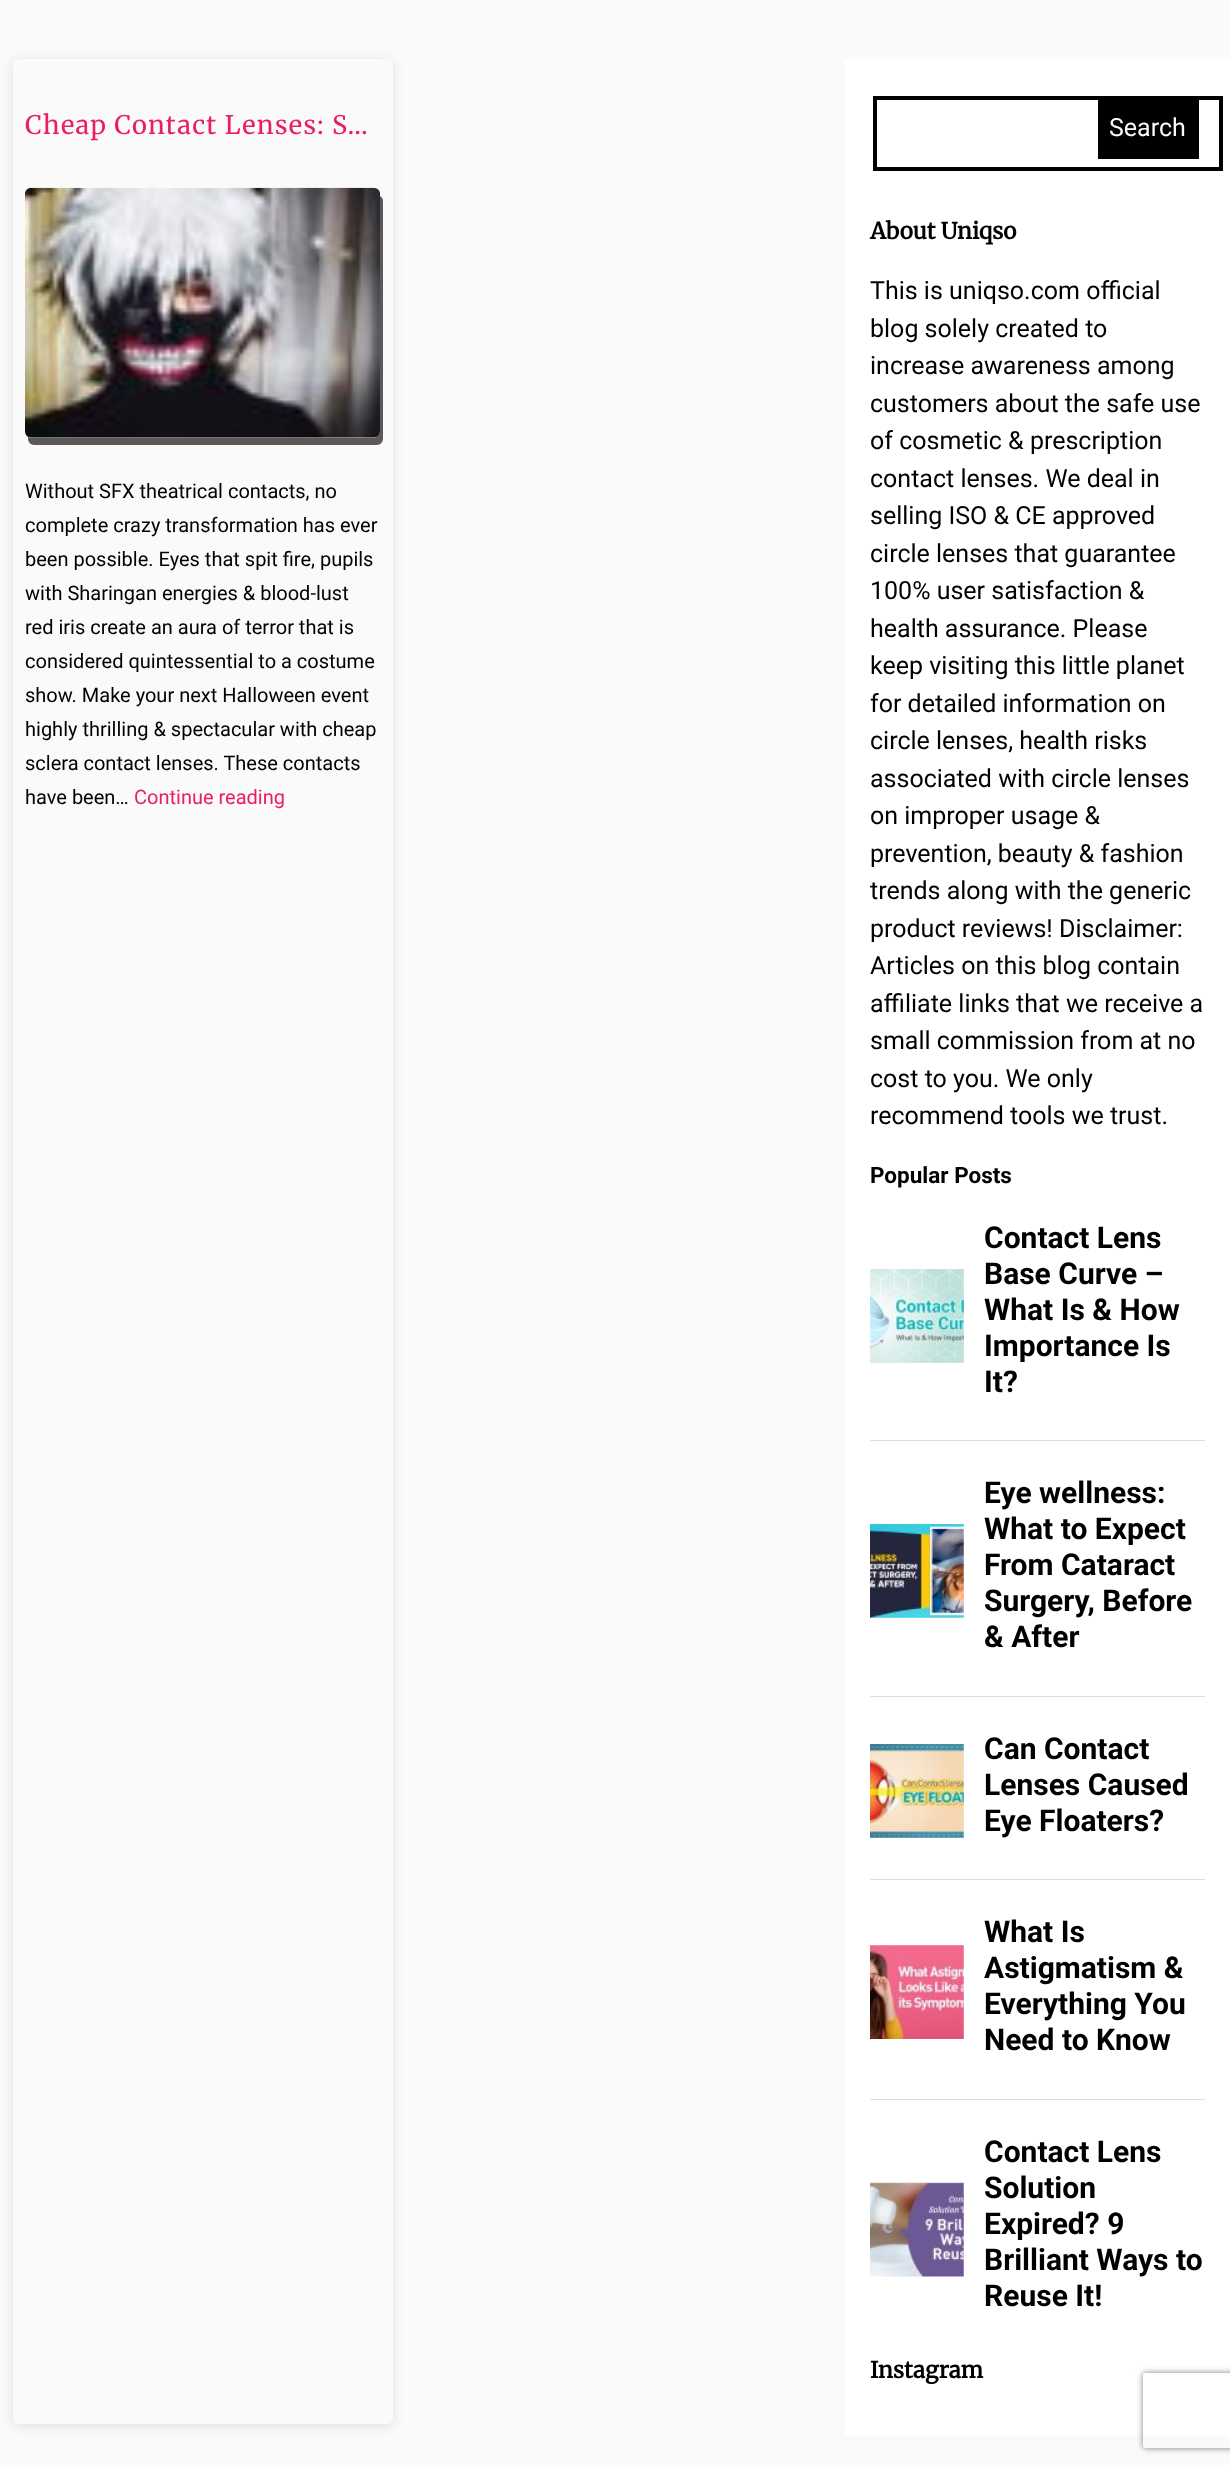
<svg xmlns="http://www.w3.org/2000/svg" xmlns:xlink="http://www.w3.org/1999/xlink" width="1230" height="2465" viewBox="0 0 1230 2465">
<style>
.cls-1{font:300 25.5px Merriweather;letter-spacing:1.25px;fill:#e91e63}
.cls-2{font:20px Roboto;fill:#000000}
.cls-3{font:20px Roboto;fill:#e91e63}
.cls-4{font:25px Roboto;fill:#fafafa}
.cls-5{font:bold 22.5px Merriweather;fill:#000000}
.cls-6{font:25px Roboto;fill:#000000}
.cls-7{font:bold 22.5px Roboto;fill:#000000}
.cls-8{font:bold 30px Roboto;fill:#000000}
</style>
<defs>
<clipPath id="clip1"><path d="M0 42H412V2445H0ZM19 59H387C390.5 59 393 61.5 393 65V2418C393 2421.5 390.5 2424 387 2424H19C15.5 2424 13 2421.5 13 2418V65C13 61.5 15.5 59 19 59Z" clip-rule="evenodd"/></clipPath>
<clipPath id="clip2"><path d="M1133 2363H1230V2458H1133ZM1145.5 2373H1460.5C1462 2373 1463 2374 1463 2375.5V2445.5C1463 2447 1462 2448 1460.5 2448H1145.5C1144 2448 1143 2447 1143 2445.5V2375.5C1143 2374 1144 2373 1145.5 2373Z" clip-rule="evenodd"/></clipPath>
</defs>
<rect width="100%" height="100%" fill="#fafafa"/>
<g clip-path="url(#clip1)">
<rect fill="#000000" fill-opacity="0.11" filter="blur(6px)" x="13" y="61" width="380" height="2365" rx="6"/>
</g>
<path fill="#5e5858" d="M28 437V439C28 442 31 445 34 445H377C380 445 383 442 383 439V201C383 199 382 197 380 196V431C380 435 377 438 374 438H31Z"/>
<image xlink:href="image0.png" x="25" y="187" width="355" height="251"/>
<rect fill="#ffffff" x="845" y="59" width="385" height="2377"/>
<rect fill="none" stroke="#000000" stroke-width="4" x="875" y="98" width="346" height="71"/>
<rect fill="#000000" x="1098" y="100" width="101" height="59"/>
<rect fill="#dddddd" x="870" y="1440" width="335" height="1"/>
<rect fill="#f0f0f0" x="870" y="1269" width="94" height="94"/>
<image xlink:href="image1.png" x="870" y="1269" width="94" height="94"/>
<rect fill="#dddddd" x="870" y="1696" width="335" height="1"/>
<rect fill="#f0f0f0" x="870" y="1524" width="94" height="94"/>
<image xlink:href="image2.png" x="870" y="1524" width="94" height="94"/>
<rect fill="#dddddd" x="870" y="1879" width="335" height="1"/>
<rect fill="#f0f0f0" x="870" y="1744" width="94" height="94"/>
<image xlink:href="image3.png" x="870" y="1744" width="94" height="94"/>
<rect fill="#dddddd" x="870" y="2099" width="335" height="1"/>
<rect fill="#f0f0f0" x="870" y="1945" width="94" height="94"/>
<image xlink:href="image4.png" x="870" y="1945" width="94" height="94"/>
<image xlink:href="image5.png" x="870" y="2182" width="94" height="95"/>
<g clip-path="url(#clip2)">
<rect fill="#808080" filter="blur(3px)" x="1143" y="2373" width="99" height="75" rx="2.5"/>
</g>
<text class="cls-1" x="25" y="134">Cheap Contact Lenses: S…</text>
<text class="cls-2"><tspan x="25" y="498">Without SFX theatrical contacts, no</tspan><tspan x="25" y="532">complete crazy transformation has ever</tspan><tspan x="25" y="566">been possible. Eyes that spit fire, pupils</tspan><tspan x="25" y="600">with Sharingan energies &amp; blood-lust</tspan><tspan x="25" y="634">red iris create an aura of terror that is</tspan><tspan x="25" y="668">considered quintessential to a costume</tspan><tspan x="25" y="702">show. Make your next Halloween event</tspan><tspan x="25" y="736">highly thrilling &amp; spectacular with cheap</tspan><tspan x="25" y="770">sclera contact lenses. These contacts</tspan><tspan x="25" y="804">have been…</tspan></text>
<text class="cls-3" x="134" y="804">Continue reading</text>
<text class="cls-4" x="1109" y="136">Search</text>
<text class="cls-5" x="870" y="239">About Uniqso</text>
<text class="cls-6"><tspan x="870" y="299">This is uniqso.com official</tspan><tspan x="870" y="337">blog solely created to</tspan><tspan x="870" y="374">increase awareness among</tspan><tspan x="870" y="412">customers about the safe use</tspan><tspan x="870" y="449">of cosmetic &amp; prescription</tspan><tspan x="870" y="487">contact lenses. We deal in</tspan><tspan x="870" y="524">selling ISO &amp; CE approved</tspan><tspan x="870" y="562">circle lenses that guarantee</tspan><tspan x="870" y="599">100% user satisfaction &amp;</tspan><tspan x="870" y="637">health assurance. Please</tspan><tspan x="870" y="674">keep visiting this little planet</tspan><tspan x="870" y="712">for detailed information on</tspan><tspan x="870" y="749">circle lenses, health risks</tspan><tspan x="870" y="787">associated with circle lenses</tspan><tspan x="870" y="824">on improper usage &amp;</tspan><tspan x="870" y="862">prevention, beauty &amp; fashion</tspan><tspan x="870" y="899">trends along with the generic</tspan><tspan x="870" y="937">product reviews! Disclaimer:</tspan><tspan x="870" y="974">Articles on this blog contain</tspan><tspan x="870" y="1012">affiliate links that we receive a</tspan><tspan x="870" y="1049">small commission from at no</tspan><tspan x="870" y="1087">cost to you. We only</tspan><tspan x="870" y="1124">recommend tools we trust.</tspan></text>
<text class="cls-7" x="870" y="1183">Popular Posts</text>
<text class="cls-8"><tspan x="984" y="1248">Contact Lens</tspan><tspan x="984" y="1284">Base Curve –</tspan><tspan x="984" y="1320">What Is &amp; How</tspan><tspan x="984" y="1356">Importance Is</tspan><tspan x="984" y="1392">It?</tspan></text>
<text class="cls-8"><tspan x="984" y="1503">Eye wellness:</tspan><tspan x="984" y="1539">What to Expect</tspan><tspan x="984" y="1575">From Cataract</tspan><tspan x="984" y="1611">Surgery, Before</tspan><tspan x="984" y="1647">&amp; After</tspan></text>
<text class="cls-8"><tspan x="984" y="1759">Can Contact</tspan><tspan x="984" y="1795">Lenses Caused</tspan><tspan x="984" y="1831">Eye Floaters?</tspan></text>
<text class="cls-8"><tspan x="984" y="1942">What Is</tspan><tspan x="984" y="1978">Astigmatism &amp;</tspan><tspan x="984" y="2014">Everything You</tspan><tspan x="984" y="2050">Need to Know</tspan></text>
<text class="cls-8"><tspan x="984" y="2162">Contact Lens</tspan><tspan x="984" y="2198">Solution</tspan><tspan x="984" y="2234">Expired? 9</tspan><tspan x="984" y="2270">Brilliant Ways to</tspan><tspan x="984" y="2306">Reuse It!</tspan></text>
<text class="cls-5" x="870" y="2378">Instagram</text>
</svg>
